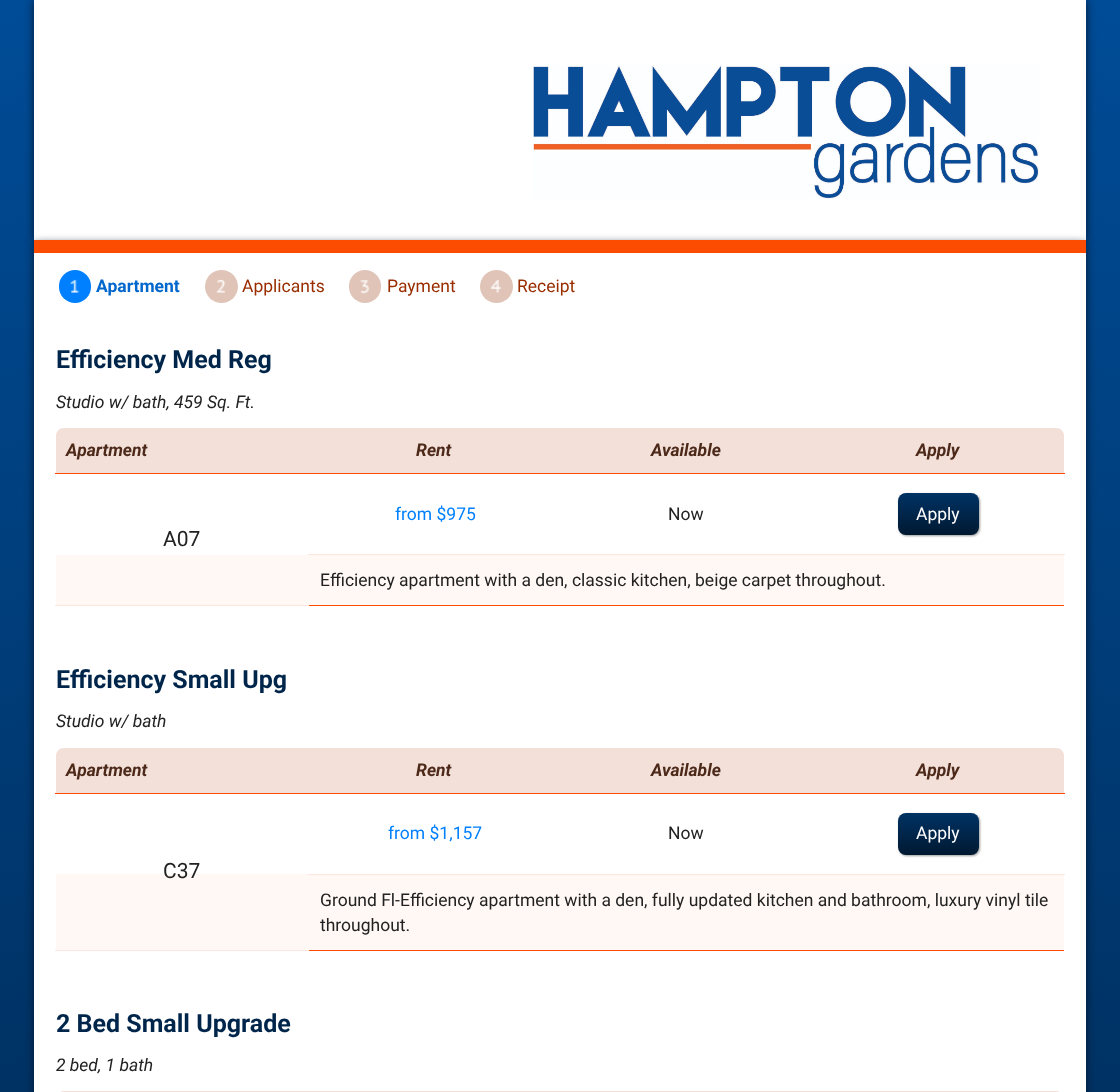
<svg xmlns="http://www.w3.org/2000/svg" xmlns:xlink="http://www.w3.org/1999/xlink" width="1120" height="1092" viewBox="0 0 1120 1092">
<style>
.cls-1{font:bold 17.5px Roboto;fill:#0067cc}
.cls-2{font:17.5px Roboto;fill:#992d00}
.cls-3{font:bold 25px Roboto;fill:#00254b}
.cls-4{font:italic 17.5px Roboto;fill:#222222}
.cls-5{font:italic bold 17.5px Roboto;fill:#4d2919}
.cls-6{font:17.5px Roboto;fill:#0080ff}
.cls-7{font:17.5px Roboto;fill:#222222}
.cls-8{font:17.5px Roboto;fill:#ffffff}
.cls-9{font:21px Roboto;fill:#222222}
</style>
<defs>
<linearGradient id="g1" gradientUnits="userSpaceOnUse" x1="560" y1="0" x2="560" y2="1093"><stop offset="0" stop-color="#004c97"/><stop offset="1" stop-color="#003264"/></linearGradient>
<linearGradient id="g2" gradientUnits="userSpaceOnUse" x1="938" y1="493" x2="938" y2="535"><stop offset="0" stop-color="#003264"/><stop offset="1" stop-color="#001931"/></linearGradient>
<linearGradient id="g3" gradientUnits="userSpaceOnUse" x1="938" y1="813" x2="938" y2="855"><stop offset="0" stop-color="#003264"/><stop offset="1" stop-color="#001931"/></linearGradient>
</defs>
<rect width="100%" height="100%" fill="#ffffff"/>
<rect fill="url(#g1)" x="0" y="0" width="1120" height="1092"/>
<rect fill="#001931" filter="blur(5px)" x="34" y="0" width="1052" height="240"/>
<rect fill="#ffffff" x="34" y="0" width="1052" height="240"/>
<image xlink:href="image0.png" x="533" y="65" width="506" height="134"/>
<rect fill="#001931" filter="blur(5px)" x="34" y="244" width="1052" height="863"/>
<rect fill="#ffffff" x="34" y="253" width="1052" height="839"/>
<rect fill="#fc4c02" x="34" y="240" width="1052" height="13"/>
<rect fill="#0080ff" x="59" y="270" width="32" height="33" rx="16"/>
<image xlink:href="image1.png" x="70" y="279" width="9" height="14"/>
<circle fill="#e0c4b8" cx="221.5" cy="286.5" r="16.5"/>
<image xlink:href="image2.png" x="216" y="279" width="10" height="14"/>
<rect fill="#e0c4b8" x="349" y="270" width="32" height="33" rx="16"/>
<image xlink:href="image3.png" x="360" y="280" width="9" height="14"/>
<circle fill="#e0c4b8" cx="496.5" cy="286.5" r="16.5"/>
<image xlink:href="image4.png" x="490" y="280" width="12" height="13"/>
<rect fill="#fd4c02" x="309" y="605" width="755" height="1"/>
<path fill="#f2e0d9" d="M64 428H308V474H56V436C56 431.5 59.5 428 64 428Z"/>
<rect fill="#f2e0d9" x="308" y="428" width="505" height="45"/>
<path fill="#f2e0d9" d="M813 428H1056C1060.5 428 1064 431.5 1064 436V474H813Z"/>
<rect fill="#fd4c02" x="55" y="473" width="1010" height="1"/>
<rect fill="#ffe6dc" x="308" y="554" width="757" height="1"/>
<rect fill="#000000" fill-opacity="0.4" filter="blur(1px)" x="899" y="494" width="81" height="42" rx="8"/>
<rect fill="url(#g2)" x="898" y="493" width="81" height="42" rx="8"/>
<rect fill="#ffe6dc" x="55" y="605" width="254" height="1"/>
<rect fill="#fff8f5" x="56" y="555" width="1008" height="50"/>
<rect fill="#fd4c02" x="309" y="950" width="755" height="1"/>
<path fill="#f2e0d9" d="M64 748H308V793H56V756C56 751.5 59.5 748 64 748Z"/>
<rect fill="#f2e0d9" x="308" y="748" width="505" height="45"/>
<path fill="#f2e0d9" d="M813 748H1056C1060.5 748 1064 751.5 1064 756V793H813Z"/>
<rect fill="#fd4c02" x="55" y="793" width="1010" height="1"/>
<rect fill="#fff8f5" x="56" y="874" width="1008" height="76"/>
<rect fill="#ffe6dc" x="308" y="874" width="757" height="1"/>
<rect fill="#000000" fill-opacity="0.4" filter="blur(1px)" x="899" y="814" width="81" height="42" rx="8"/>
<rect fill="url(#g3)" x="898" y="813" width="81" height="42" rx="8"/>
<rect fill="#ffe6dc" x="55" y="950" width="254" height="1"/>
<path fill="#f2e0d9" d="M64 1091H308V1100H56V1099C56 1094.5 59.5 1091 64 1091Z"/>
<rect fill="#f2e0d9" x="308" y="1091" width="505" height="1"/>
<path fill="#f2e0d9" d="M813 1091H1056C1060.5 1091 1064 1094.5 1064 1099V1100H813Z"/>
<text class="cls-1" x="96" y="292">Apartment</text>
<text class="cls-2" x="242" y="292">Applicants</text>
<text class="cls-2" x="387" y="292">Payment</text>
<text class="cls-2" x="517" y="292">Receipt</text>
<text class="cls-3" x="56" y="368">Efficiency Med Reg</text>
<text class="cls-4" x="56" y="408">Studio w/ bath, 459 Sq. Ft.</text>
<text class="cls-5" x="66" y="456">Apartment</text>
<text class="cls-5" x="416" y="456">Rent</text>
<text class="cls-5" x="651" y="456">Available</text>
<text class="cls-5" x="916" y="456">Apply</text>
<text class="cls-6" x="395" y="520">from $975</text>
<text class="cls-7" x="668" y="520">Now</text>
<text class="cls-8" x="916" y="520">Apply</text>
<text class="cls-9" x="163" y="546">A07</text>
<text class="cls-7" x="320" y="586">Efficiency apartment with a den, classic kitchen, beige carpet throughout.</text>
<text class="cls-3" x="56" y="688">Efficiency Small Upg</text>
<text class="cls-4" x="56" y="727">Studio w/ bath</text>
<text class="cls-5" x="66" y="776">Apartment</text>
<text class="cls-5" x="416" y="776">Rent</text>
<text class="cls-5" x="651" y="776">Available</text>
<text class="cls-5" x="916" y="776">Apply</text>
<text class="cls-6" x="388" y="839">from $1,157</text>
<text class="cls-7" x="668" y="839">Now</text>
<text class="cls-8" x="916" y="839">Apply</text>
<text class="cls-9" x="163" y="878">C37</text>
<text class="cls-7"><tspan x="320" y="906">Ground Fl-Efficiency apartment with a den, fully updated kitchen and bathroom, luxury vinyl tile</tspan><tspan x="320" y="931">throughout.</tspan></text>
<text class="cls-3" x="56" y="1032">2 Bed Small Upgrade</text>
<text class="cls-4" x="56" y="1071">2 bed, 1 bath</text>
</svg>
